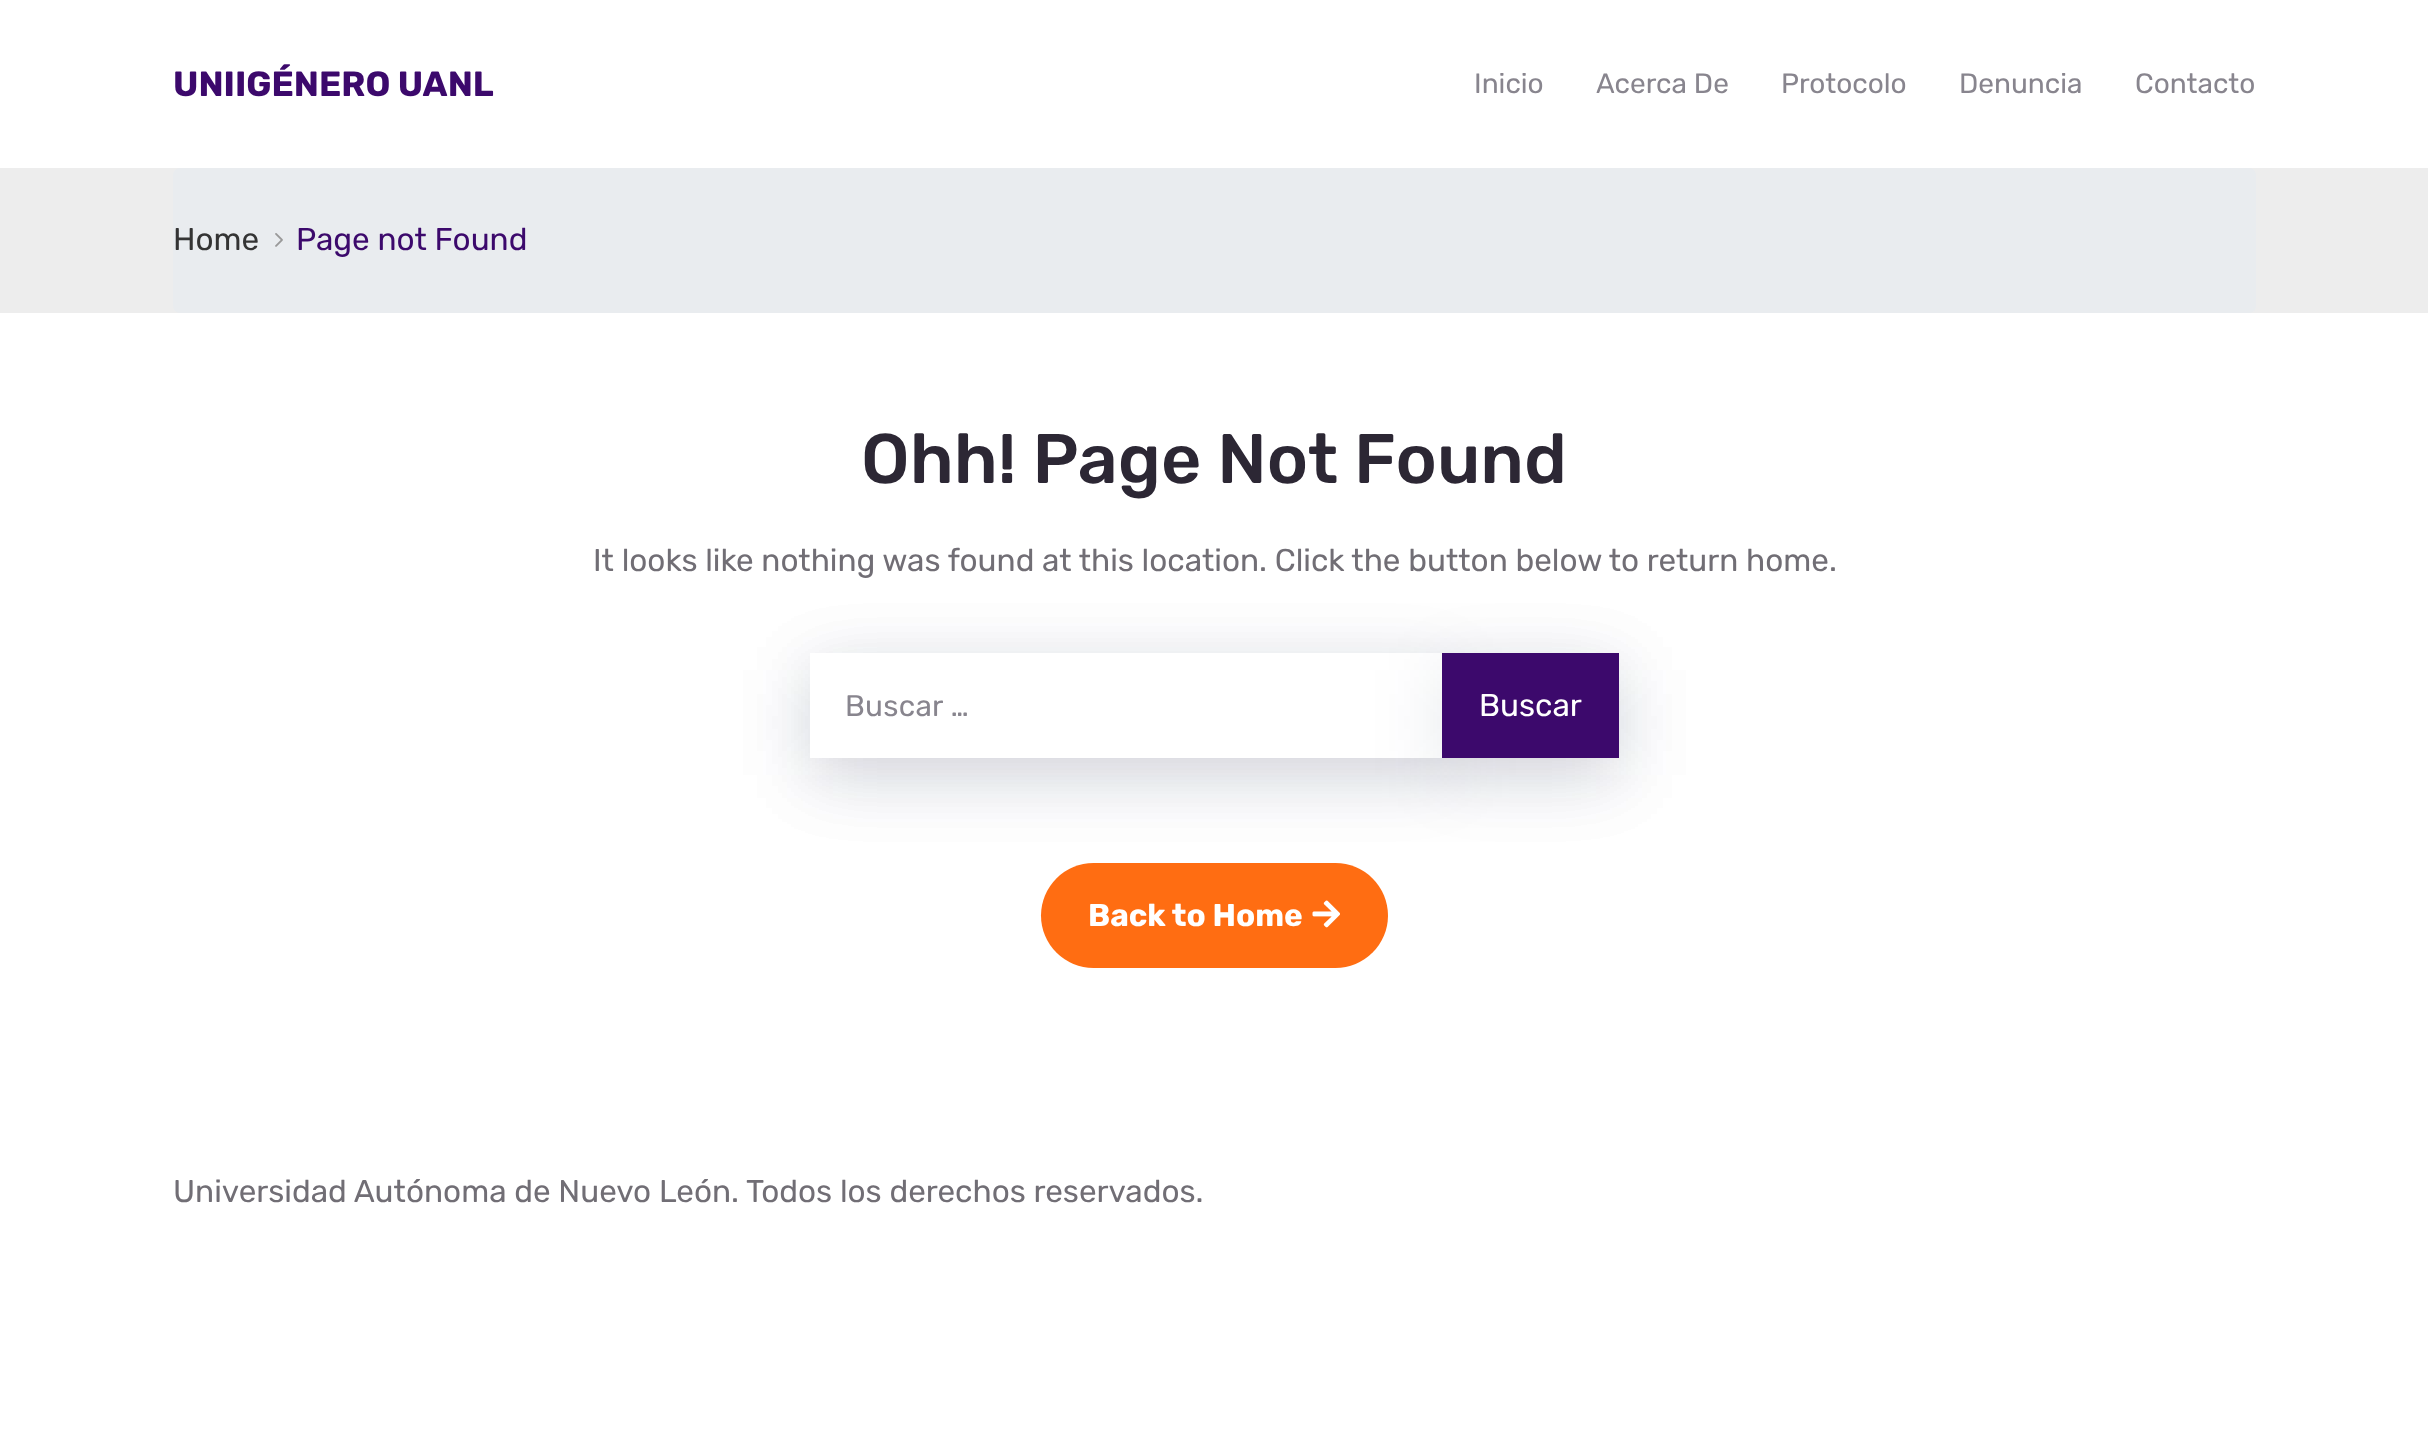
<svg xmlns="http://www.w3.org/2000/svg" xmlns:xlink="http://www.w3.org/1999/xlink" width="2428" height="1454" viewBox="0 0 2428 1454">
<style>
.cls-1{font:bold 35px Rubik;fill:#3c096c}
.cls-2{font:28px Rubik;fill:#88858e}
.cls-3{font:31.5px Rubik;fill:#343434}
.cls-4{font:31.5px Rubik;fill:#3c096c}
.cls-5{font:500 70px Rubik;fill:#2c2734}
.cls-6{font:31.5px Rubik;fill:#716e75}
.cls-7{font:29.75px Rubik;letter-spacing:0.25px;fill:#88858e}
.cls-8{font:31.5px Rubik;fill:#ffffff}
.cls-9{font:bold 31.5px Rubik;fill:#ffffff}
</style>
<rect width="100%" height="100%" fill="#ffffff"/>
<rect fill="#ededed" x="0" y="168" width="2428" height="145"/>
<rect fill="#e9ecef" x="173" y="168" width="2083" height="145" rx="7"/>
<image xlink:href="image0.png" x="275" y="233" width="8" height="14"/>
<rect fill="#06163a" fill-opacity="0.1" filter="blur(35px)" x="810" y="670" width="809" height="105"/>
<rect fill="#06163a" fill-opacity="0.1" filter="blur(35px)" x="810" y="670" width="639" height="105"/>
<rect fill="#ffffff" x="810" y="653" width="632" height="105"/>
<rect fill="#ff6d12" x="1041" y="863" width="347" height="105" rx="52.5"/>
<rect fill="#06163a" fill-opacity="0.1" filter="blur(35px)" x="1442" y="670" width="177" height="105"/>
<rect fill="#3c096c" x="1442" y="653" width="177" height="105"/>
<image xlink:href="image1.png" x="1312" y="900" width="28" height="28"/>
<text class="cls-1" x="173" y="96">UNIIGÉNERO UANL</text>
<text class="cls-2" x="1474" y="93">Inicio</text>
<text class="cls-2" x="1596" y="93">Acerca De</text>
<text class="cls-2" x="1781" y="93">Protocolo</text>
<text class="cls-2" x="1959" y="93">Denuncia</text>
<text class="cls-2" x="2135" y="93">Contacto</text>
<text class="cls-3" x="173" y="250">Home</text>
<text class="cls-4" x="296" y="250">Page not Found</text>
<text class="cls-5" x="861" y="483">Ohh! Page Not Found</text>
<text class="cls-6" x="593" y="571">It looks like nothing was found at this location. Click the button below to return home.</text>
<text class="cls-7" x="845" y="716">Buscar …</text>
<text class="cls-8" x="1479" y="716">Buscar</text>
<text class="cls-9" x="1088" y="926">Back to Home</text>
<text class="cls-6" x="173" y="1202">Universidad Autónoma de Nuevo León. Todos los derechos reservados.</text>
</svg>
